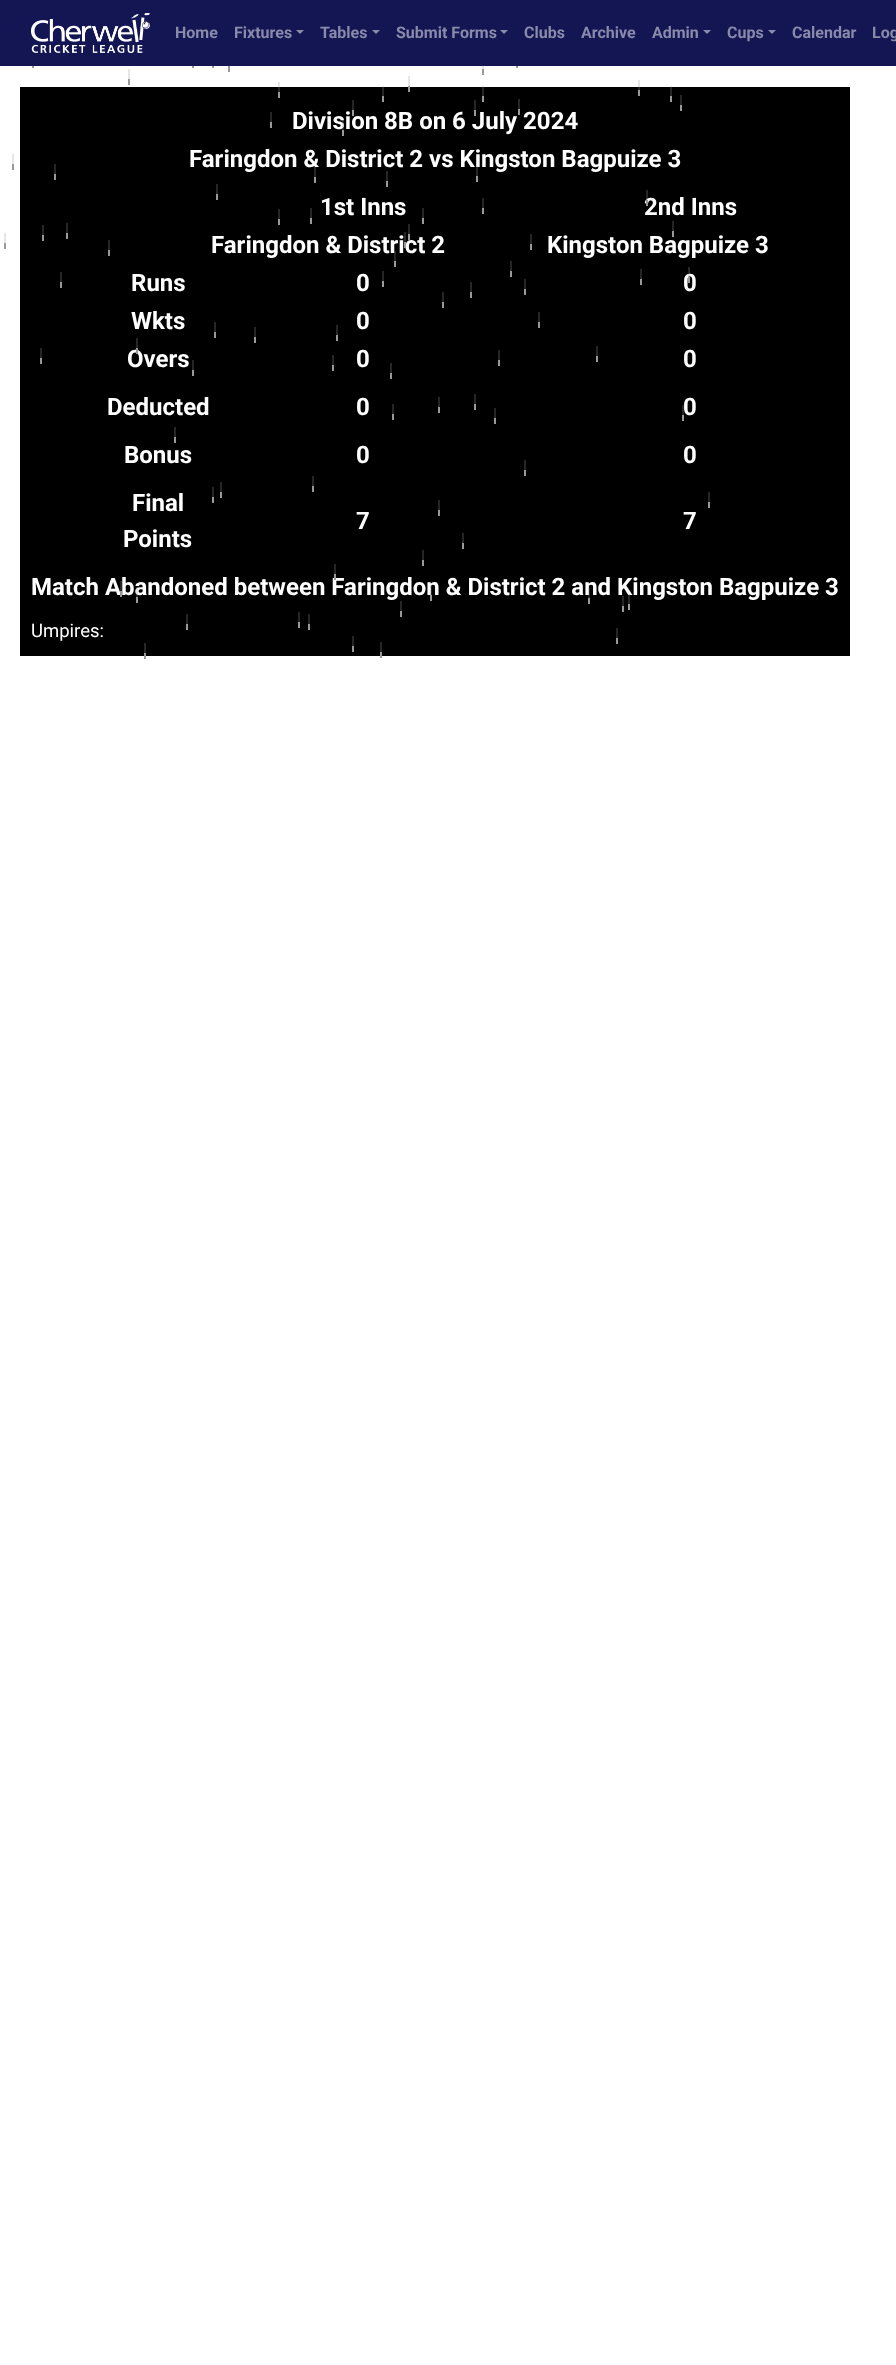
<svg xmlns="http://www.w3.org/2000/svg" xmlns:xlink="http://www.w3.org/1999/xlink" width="896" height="2365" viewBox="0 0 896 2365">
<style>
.cls-1{font:bold 16px Roboto;fill:#8a8baa}
.cls-2{font:bold 24px Roboto;fill:#ffffff}
.cls-3{font:18.5px Roboto;fill:#ffffff}
</style>
<rect width="100%" height="100%" fill="#ffffff"/>
<rect fill="#e6e6e6" x="278" y="82" width="2" height="10"/>
<rect fill="#e6e6e6" x="670" y="86" width="2" height="1"/>
<rect fill="#e6e6e6" x="638" y="80" width="2" height="10"/>
<rect fill="#e6e6e6" x="382" y="86" width="2" height="1"/>
<rect fill="#e6e6e6" x="482" y="86" width="2" height="1"/>
<rect fill="#999999" x="32" y="62" width="2" height="6"/>
<rect fill="#999999" x="192" y="62" width="2" height="6"/>
<rect fill="#999999" x="212" y="62" width="2" height="6"/>
<rect fill="#e6e6e6" x="482" y="59" width="2" height="10"/>
<rect fill="#999999" x="516" y="62" width="2" height="6"/>
<rect fill="#141654" x="0" y="0" width="896" height="66"/>
<image xlink:href="image0.png" x="31" y="13" width="120" height="40"/>
<path fill="#8a8baa" d="M296 30H304L300 34Z"/>
<path fill="#8a8baa" d="M372 30H380L376 34Z"/>
<path fill="#8a8baa" d="M500 30H508L504 34Z"/>
<path fill="#8a8baa" d="M703 30H711L707 34Z"/>
<path fill="#8a8baa" d="M768 30H776L772 34Z"/>
<rect fill="#999999" x="482" y="69" width="2" height="6"/>
<rect fill="#e6e6e6" x="128" y="69" width="2" height="10"/>
<rect fill="#999999" x="128" y="79" width="2" height="6"/>
<rect fill="#999999" x="228" y="66" width="2" height="6"/>
<rect fill="#e6e6e6" x="408" y="76" width="2" height="10"/>
<rect fill="#000000" x="20" y="87" width="830" height="569"/>
<rect fill="#999999" x="408" y="86" width="2" height="6"/>
<rect fill="#999999" x="278" y="92" width="2" height="6"/>
<rect fill="#262626" x="352" y="100" width="2" height="10"/>
<rect fill="#999999" x="382" y="96" width="2" height="6"/>
<rect fill="#262626" x="474" y="100" width="2" height="10"/>
<rect fill="#999999" x="482" y="96" width="2" height="6"/>
<rect fill="#262626" x="518" y="99" width="2" height="10"/>
<rect fill="#999999" x="638" y="90" width="2" height="6"/>
<rect fill="#999999" x="670" y="96" width="2" height="6"/>
<rect fill="#262626" x="680" y="95" width="2" height="10"/>
<rect fill="#999999" x="680" y="105" width="2" height="6"/>
<rect fill="#262626" x="270" y="112" width="2" height="10"/>
<rect fill="#999999" x="270" y="122" width="2" height="6"/>
<rect fill="#e6e6e6" x="12" y="154" width="2" height="10"/>
<rect fill="#999999" x="12" y="164" width="2" height="6"/>
<rect fill="#262626" x="54" y="164" width="2" height="10"/>
<rect fill="#999999" x="54" y="174" width="2" height="6"/>
<rect fill="#999999" x="314" y="177" width="2" height="6"/>
<rect fill="#999999" x="386" y="181" width="2" height="6"/>
<rect fill="#999999" x="476" y="176" width="2" height="6"/>
<rect fill="#262626" x="216" y="184" width="2" height="10"/>
<rect fill="#999999" x="216" y="194" width="2" height="6"/>
<rect fill="#262626" x="482" y="198" width="2" height="10"/>
<rect fill="#999999" x="482" y="208" width="2" height="6"/>
<rect fill="#262626" x="278" y="209" width="2" height="10"/>
<rect fill="#999999" x="278" y="219" width="2" height="6"/>
<rect fill="#262626" x="310" y="208" width="2" height="10"/>
<rect fill="#999999" x="310" y="218" width="2" height="6"/>
<rect fill="#262626" x="422" y="208" width="2" height="10"/>
<rect fill="#999999" x="422" y="218" width="2" height="6"/>
<rect fill="#e6e6e6" x="4" y="233" width="2" height="10"/>
<rect fill="#999999" x="4" y="243" width="2" height="6"/>
<rect fill="#262626" x="42" y="225" width="2" height="10"/>
<rect fill="#999999" x="42" y="235" width="2" height="6"/>
<rect fill="#262626" x="66" y="223" width="2" height="10"/>
<rect fill="#999999" x="66" y="233" width="2" height="6"/>
<rect fill="#262626" x="108" y="240" width="2" height="10"/>
<rect fill="#999999" x="108" y="250" width="2" height="6"/>
<rect fill="#262626" x="408" y="224" width="2" height="10"/>
<rect fill="#262626" x="530" y="234" width="2" height="10"/>
<rect fill="#999999" x="530" y="244" width="2" height="6"/>
<rect fill="#262626" x="672" y="221" width="2" height="10"/>
<rect fill="#999999" x="394" y="261" width="2" height="6"/>
<rect fill="#262626" x="60" y="272" width="2" height="10"/>
<rect fill="#999999" x="60" y="282" width="2" height="6"/>
<rect fill="#262626" x="382" y="271" width="2" height="10"/>
<rect fill="#999999" x="382" y="281" width="2" height="6"/>
<rect fill="#262626" x="470" y="282" width="2" height="10"/>
<rect fill="#999999" x="470" y="292" width="2" height="6"/>
<rect fill="#262626" x="510" y="261" width="2" height="10"/>
<rect fill="#999999" x="510" y="271" width="2" height="6"/>
<rect fill="#262626" x="524" y="279" width="2" height="10"/>
<rect fill="#999999" x="524" y="289" width="2" height="6"/>
<rect fill="#262626" x="640" y="269" width="2" height="10"/>
<rect fill="#999999" x="640" y="279" width="2" height="6"/>
<rect fill="#262626" x="442" y="292" width="2" height="10"/>
<rect fill="#999999" x="442" y="302" width="2" height="6"/>
<rect fill="#262626" x="538" y="312" width="2" height="10"/>
<rect fill="#999999" x="538" y="322" width="2" height="6"/>
<rect fill="#262626" x="214" y="322" width="2" height="10"/>
<rect fill="#999999" x="214" y="332" width="2" height="6"/>
<rect fill="#262626" x="254" y="327" width="2" height="10"/>
<rect fill="#999999" x="254" y="337" width="2" height="6"/>
<rect fill="#262626" x="336" y="325" width="2" height="10"/>
<rect fill="#999999" x="336" y="335" width="2" height="6"/>
<rect fill="#262626" x="40" y="348" width="2" height="10"/>
<rect fill="#999999" x="40" y="358" width="2" height="6"/>
<rect fill="#262626" x="136" y="338" width="2" height="10"/>
<rect fill="#262626" x="192" y="360" width="2" height="10"/>
<rect fill="#999999" x="192" y="370" width="2" height="6"/>
<rect fill="#262626" x="332" y="355" width="2" height="10"/>
<rect fill="#999999" x="332" y="365" width="2" height="6"/>
<rect fill="#262626" x="390" y="363" width="2" height="10"/>
<rect fill="#999999" x="390" y="373" width="2" height="6"/>
<rect fill="#262626" x="498" y="350" width="2" height="10"/>
<rect fill="#999999" x="498" y="360" width="2" height="6"/>
<rect fill="#262626" x="596" y="346" width="2" height="10"/>
<rect fill="#999999" x="596" y="356" width="2" height="6"/>
<rect fill="#262626" x="392" y="404" width="2" height="10"/>
<rect fill="#999999" x="392" y="414" width="2" height="6"/>
<rect fill="#262626" x="438" y="397" width="2" height="10"/>
<rect fill="#999999" x="438" y="407" width="2" height="6"/>
<rect fill="#262626" x="474" y="394" width="2" height="10"/>
<rect fill="#999999" x="474" y="404" width="2" height="6"/>
<rect fill="#262626" x="494" y="408" width="2" height="10"/>
<rect fill="#999999" x="494" y="418" width="2" height="6"/>
<rect fill="#262626" x="682" y="405" width="2" height="10"/>
<rect fill="#999999" x="682" y="415" width="2" height="6"/>
<rect fill="#262626" x="174" y="427" width="2" height="10"/>
<rect fill="#999999" x="174" y="437" width="2" height="6"/>
<rect fill="#262626" x="524" y="460" width="2" height="10"/>
<rect fill="#999999" x="524" y="470" width="2" height="6"/>
<rect fill="#262626" x="212" y="487" width="2" height="10"/>
<rect fill="#999999" x="212" y="497" width="2" height="6"/>
<rect fill="#262626" x="220" y="482" width="2" height="10"/>
<rect fill="#999999" x="220" y="492" width="2" height="6"/>
<rect fill="#262626" x="312" y="476" width="2" height="10"/>
<rect fill="#999999" x="312" y="486" width="2" height="6"/>
<rect fill="#262626" x="438" y="500" width="2" height="10"/>
<rect fill="#999999" x="438" y="510" width="2" height="6"/>
<rect fill="#262626" x="708" y="492" width="2" height="10"/>
<rect fill="#999999" x="708" y="502" width="2" height="6"/>
<rect fill="#262626" x="462" y="533" width="2" height="10"/>
<rect fill="#999999" x="462" y="543" width="2" height="6"/>
<rect fill="#262626" x="422" y="550" width="2" height="10"/>
<rect fill="#999999" x="422" y="560" width="2" height="6"/>
<rect fill="#262626" x="334" y="564" width="2" height="10"/>
<rect fill="#262626" x="400" y="601" width="2" height="10"/>
<rect fill="#999999" x="400" y="611" width="2" height="6"/>
<rect fill="#999999" x="622" y="606" width="2" height="6"/>
<rect fill="#999999" x="628" y="604" width="2" height="6"/>
<rect fill="#262626" x="186" y="614" width="2" height="10"/>
<rect fill="#999999" x="186" y="624" width="2" height="6"/>
<rect fill="#262626" x="298" y="612" width="2" height="10"/>
<rect fill="#999999" x="298" y="622" width="2" height="6"/>
<rect fill="#262626" x="308" y="614" width="2" height="10"/>
<rect fill="#999999" x="308" y="624" width="2" height="6"/>
<rect fill="#262626" x="144" y="643" width="2" height="10"/>
<rect fill="#999999" x="144" y="653" width="2" height="6"/>
<rect fill="#262626" x="352" y="636" width="2" height="10"/>
<rect fill="#999999" x="352" y="646" width="2" height="6"/>
<rect fill="#262626" x="380" y="642" width="2" height="10"/>
<rect fill="#999999" x="380" y="652" width="2" height="6"/>
<rect fill="#262626" x="616" y="628" width="2" height="10"/>
<rect fill="#999999" x="616" y="638" width="2" height="6"/>
<rect fill="#262626" x="278" y="87" width="2" height="5"/>
<rect fill="#262626" x="670" y="87" width="2" height="9"/>
<rect fill="#262626" x="638" y="87" width="2" height="3"/>
<rect fill="#262626" x="382" y="87" width="2" height="9"/>
<rect fill="#262626" x="482" y="87" width="2" height="9"/>
<text class="cls-1" x="175" y="38">Home</text>
<text class="cls-1" x="234" y="38">Fixtures</text>
<text class="cls-1" x="320" y="38">Tables</text>
<text class="cls-1" x="396" y="38">Submit Forms</text>
<text class="cls-1" x="524" y="38">Clubs</text>
<text class="cls-1" x="581" y="38">Archive</text>
<text class="cls-1" x="652" y="38">Admin</text>
<text class="cls-1" x="727" y="38">Cups</text>
<text class="cls-1" x="792" y="38">Calendar</text>
<text class="cls-1" x="872" y="38">Log</text>
<text class="cls-2" x="292" y="129">Division 8B on 6 July 2024</text>
<rect fill="#999999" x="352" y="110" width="2" height="6"/>
<rect fill="#999999" fill-opacity="0.25" x="342" y="120" width="2" height="10"/>
<rect fill="#999999" x="342" y="130" width="2" height="6"/>
<rect fill="#999999" x="474" y="110" width="2" height="6"/>
<rect fill="#999999" x="518" y="109" width="2" height="6"/>
<text class="cls-2" x="189" y="167">Faringdon &amp; District 2 vs Kingston Bagpuize 3</text>
<rect fill="#999999" fill-opacity="0.25" x="476" y="166" width="2" height="10"/>
<rect fill="#262626" x="386" y="171" width="2" height="10"/>
<rect fill="#262626" x="314" y="167" width="2" height="10"/>
<text class="cls-2" x="320" y="215">1st Inns</text>
<text class="cls-2" x="644" y="215">2nd Inns</text>
<rect fill="#999999" fill-opacity="0.25" x="646" y="190" width="2" height="10"/>
<rect fill="#999999" x="646" y="200" width="2" height="6"/>
<text class="cls-2" x="211" y="253">Faringdon &amp; District 2</text>
<rect fill="#262626" x="404" y="232" width="2" height="10"/>
<rect fill="#999999" x="404" y="242" width="2" height="6"/>
<rect fill="#999999" fill-opacity="0.25" x="394" y="251" width="2" height="10"/>
<rect fill="#999999" x="408" y="234" width="2" height="6"/>
<text class="cls-2" x="547" y="253">Kingston Bagpuize 3</text>
<rect fill="#999999" x="672" y="231" width="2" height="6"/>
<text class="cls-2" x="131" y="291">Runs</text>
<text class="cls-2" x="356" y="291">0</text>
<text class="cls-2" x="683" y="291">0</text>
<rect fill="#999999" fill-opacity="0.25" x="688" y="267" width="2" height="10"/>
<rect fill="#999999" x="688" y="277" width="2" height="6"/>
<text class="cls-2" x="131" y="329">Wkts</text>
<text class="cls-2" x="356" y="329">0</text>
<text class="cls-2" x="683" y="329">0</text>
<text class="cls-2" x="127" y="367">Overs</text>
<rect fill="#999999" x="136" y="348" width="2" height="6"/>
<text class="cls-2" x="356" y="367">0</text>
<text class="cls-2" x="683" y="367">0</text>
<text class="cls-2" x="107" y="415">Deducted</text>
<text class="cls-2" x="356" y="415">0</text>
<text class="cls-2" x="683" y="415">0</text>
<text class="cls-2" x="124" y="463">Bonus</text>
<text class="cls-2" x="356" y="463">0</text>
<text class="cls-2" x="683" y="463">0</text>
<text class="cls-2" x="132" y="511">Final</text>
<text class="cls-2" x="123" y="547">Points</text>
<text class="cls-2" x="356" y="529">7</text>
<text class="cls-2" x="683" y="529">7</text>
<text class="cls-2" x="31" y="595">Match Abandoned between Faringdon &amp; District 2 and Kingston Bagpuize 3</text>
<rect fill="#999999" fill-opacity="0.25" x="136" y="587" width="2" height="10"/>
<rect fill="#999999" x="136" y="597" width="2" height="6"/>
<rect fill="#999999" fill-opacity="0.25" x="628" y="594" width="2" height="10"/>
<rect fill="#999999" fill-opacity="0.25" x="430" y="585" width="2" height="10"/>
<rect fill="#999999" x="430" y="595" width="2" height="6"/>
<rect fill="#999999" fill-opacity="0.25" x="588" y="588" width="2" height="10"/>
<rect fill="#999999" x="588" y="598" width="2" height="6"/>
<rect fill="#262626" x="120" y="581" width="2" height="10"/>
<rect fill="#999999" x="120" y="591" width="2" height="6"/>
<rect fill="#262626" x="622" y="596" width="2" height="10"/>
<rect fill="#999999" x="334" y="574" width="2" height="6"/>
<text class="cls-3" x="31" y="637">Umpires:</text>
</svg>
